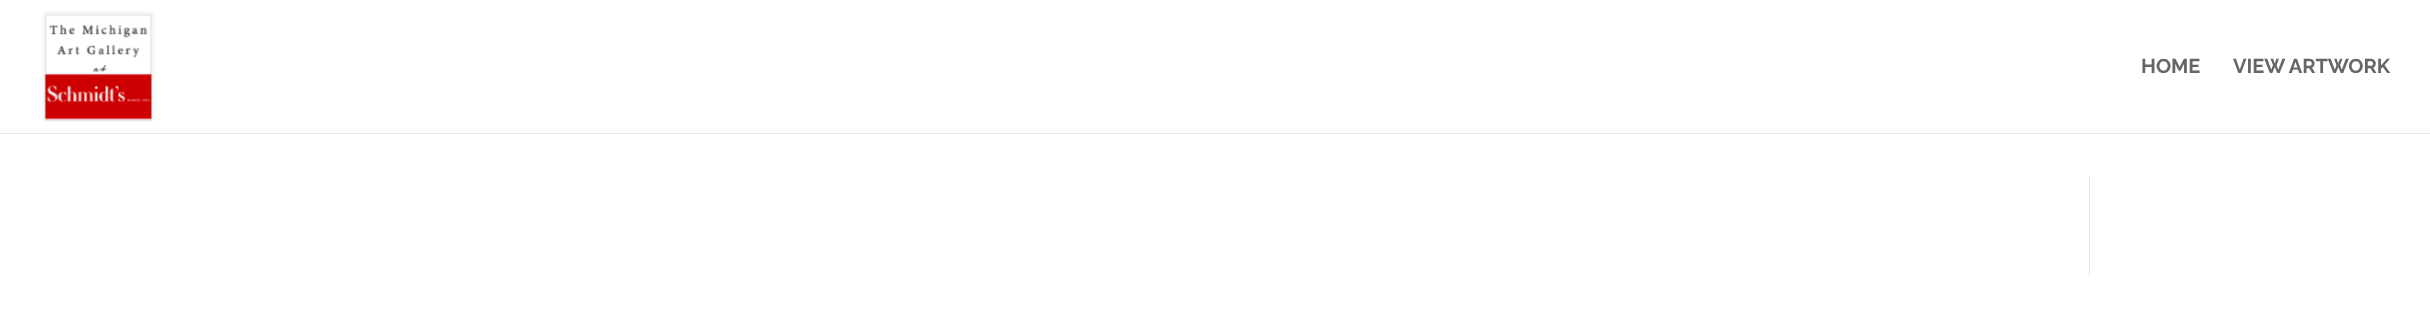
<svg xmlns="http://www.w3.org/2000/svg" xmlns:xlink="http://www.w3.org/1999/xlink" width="2430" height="323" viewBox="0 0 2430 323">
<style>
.cls-1{font:100 20px Raleway;fill:#666666}
</style>
<rect width="100%" height="100%" fill="#ffffff"/>
<rect fill="#e6e6e6" x="0" y="133" width="2430" height="1"/>
<image xlink:href="image0.png" x="42" y="11" width="113" height="111"/>
<rect fill="#e6e6e6" x="2089" y="176" width="1" height="100"/>
<text class="cls-1" x="2141" y="73">HOME</text>
<text class="cls-1" x="2233" y="73">VIEW ARTWORK</text>
</svg>
